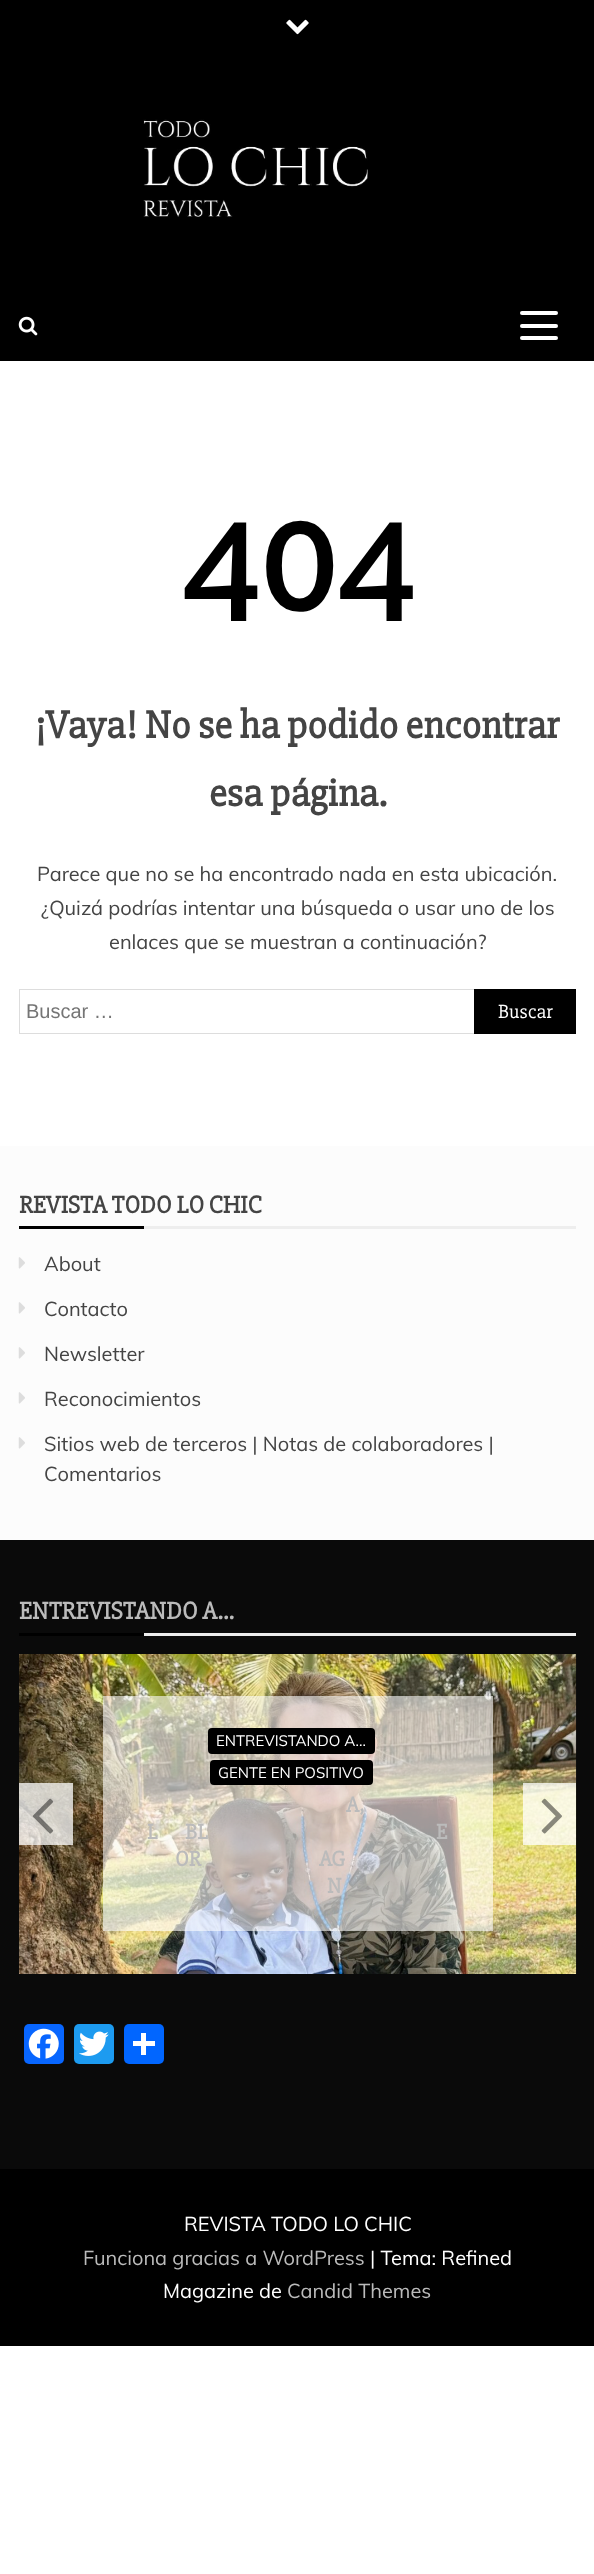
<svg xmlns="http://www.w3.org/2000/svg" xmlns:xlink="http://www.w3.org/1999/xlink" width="594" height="2574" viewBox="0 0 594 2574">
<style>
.cls-1{font:bold 150px 'Slabo 27px';fill:#000000}
.cls-2{font:bold 40px 'Slabo 27px';fill:#444444}
.cls-3{font:20px Muli;fill:#444444}
.cls-4{font:20px Liberation Sans;fill:#757575}
.cls-5{font:20px 'Slabo 27px';fill:#ffffff}
.cls-6{font:bold 25px 'Slabo 27px';fill:#444444}
.cls-7{font:bold 25px 'Slabo 27px';fill:#bbbbbb}
.cls-8{font:15px Muli;fill:#ffffff}
.cls-9{font:bold 22px 'Slabo 27px';fill:#bbbbbb}
.cls-10{font:20px Muli;fill:#ffffff}
.cls-11{font:20px Muli;fill:#bbbbbb}
</style>
<rect width="100%" height="100%" fill="#ffffff"/>
<rect fill="#000000" x="0" y="0" width="594" height="361"/>
<image xlink:href="image0.png" x="286" y="19" width="23" height="16"/>
<image xlink:href="image1.png" x="143" y="119" width="225" height="98"/>
<image xlink:href="image2.png" x="18" y="316" width="20" height="20"/>
<rect fill="#ffffff" x="520" y="311" width="38" height="4" rx="2"/>
<rect fill="#ffffff" x="520" y="324" width="38" height="4" rx="2"/>
<rect fill="#ffffff" x="520" y="336" width="38" height="4" rx="2"/>
<rect fill="none" stroke="#dddddd" x="19.5" y="989.5" width="556" height="44"/>
<rect fill="#000000" x="474" y="989" width="102" height="45"/>
<rect fill="#fcfcfc" x="0" y="1146" width="594" height="394"/>
<rect fill="#eeeeee" x="144" y="1226" width="432" height="3"/>
<rect fill="#000000" x="19" y="1226" width="125" height="3"/>
<image xlink:href="image3.png" x="18" y="1257" width="7" height="12"/>
<image xlink:href="image3.png" x="18" y="1302" width="7" height="12"/>
<image xlink:href="image3.png" x="18" y="1347" width="7" height="12"/>
<image xlink:href="image3.png" x="18" y="1392" width="7" height="12"/>
<image xlink:href="image3.png" x="18" y="1437" width="7" height="12"/>
<rect fill="#0a0a0a" x="0" y="1540" width="594" height="629"/>
<rect fill="#eeeeee" x="144" y="1633" width="432" height="3"/>
<rect fill="#000000" x="19" y="1633" width="125" height="3"/>
<image xlink:href="image5.png" x="19" y="1654" width="558" height="320"/>
<rect fill="#ffffff" fill-opacity="0.75" x="19" y="1783" width="54" height="62"/>
<image xlink:href="image4.png" x="32" y="1798" width="22" height="36"/>
<rect fill="#ffffff" fill-opacity="0.6" x="103" y="1696" width="390" height="235"/>
<rect fill="#000000" x="208" y="1728" width="167" height="26" rx="4"/>
<rect fill="#000000" x="210" y="1760" width="163" height="25" rx="4"/>
<rect fill="#ffffff" fill-opacity="0.75" x="523" y="1783" width="53" height="62"/>
<image xlink:href="image6.png" x="541" y="1798" width="21" height="36"/>
<rect fill="#0866ff" x="24" y="2024" width="40" height="40" rx="5"/>
<image xlink:href="image7.png" x="28" y="2028" width="31" height="31"/>
<rect fill="#1d9bf0" x="74" y="2024" width="40" height="40" rx="5"/>
<image xlink:href="image8.png" x="79" y="2031" width="30" height="25"/>
<rect fill="#0166ff" x="124" y="2024" width="40" height="40" rx="5"/>
<rect fill="#ffffff" x="141" y="2033" width="5" height="22"/>
<rect fill="#ffffff" x="133" y="2041" width="22" height="5"/>
<rect fill="#000000" x="0" y="2169" width="594" height="177"/>
<text class="cls-1" x="181" y="610">404</text>
<text class="cls-2" x="35" y="738">¡Vaya! No se ha podido encontrar</text>
<text class="cls-2" x="209" y="806">esa página.</text>
<text class="cls-3" x="37" y="881">Parece que no se ha encontrado nada en esta ubicación.</text>
<text class="cls-3" x="41" y="915">¿Quizá podrías intentar una búsqueda o usar uno de los</text>
<text class="cls-3" x="109" y="949">enlaces que se muestran a continuación?</text>
<text class="cls-4" x="26" y="1018">Buscar …</text>
<text class="cls-5" x="498" y="1018">Buscar</text>
<text class="cls-6" x="19" y="1213">REVISTA TODO LO CHIC</text>
<text class="cls-3" x="44" y="1271">About</text>
<text class="cls-3" x="44" y="1316">Contacto</text>
<text class="cls-3" x="44" y="1361">Newsletter</text>
<text class="cls-3" x="44" y="1406">Reconocimientos</text>
<text class="cls-3"><tspan x="44" y="1451">Sitios web de terceros | Notas de colaboradores |</tspan><tspan x="44" y="1481">Comentarios</tspan></text>
<text class="cls-7" x="19" y="1619">ENTREVISTANDO A…</text>
<text class="cls-8" x="216" y="1746">ENTREVISTANDO A...</text>
<text class="cls-8" x="218" y="1778">GENTE EN POSITIVO</text>
<text class="cls-9" x="346" y="1812">A,</text>
<text class="cls-9" x="147" y="1839">L</text>
<text class="cls-9" x="185" y="1839">BL</text>
<text class="cls-9" x="436" y="1839">E</text>
<text class="cls-9" x="175" y="1866">OR</text>
<text class="cls-9" x="319" y="1866">AG</text>
<text class="cls-9" x="327" y="1893">N</text>
<text class="cls-10" x="184" y="2231">REVISTA TODO LO CHIC</text>
<text class="cls-11" x="83" y="2265">Funciona gracias a WordPress</text>
<text class="cls-10" x="370" y="2265">| Tema: Refined</text>
<text class="cls-10" x="163" y="2298">Magazine de</text>
<text class="cls-11" x="287" y="2298">Candid Themes</text>
</svg>
